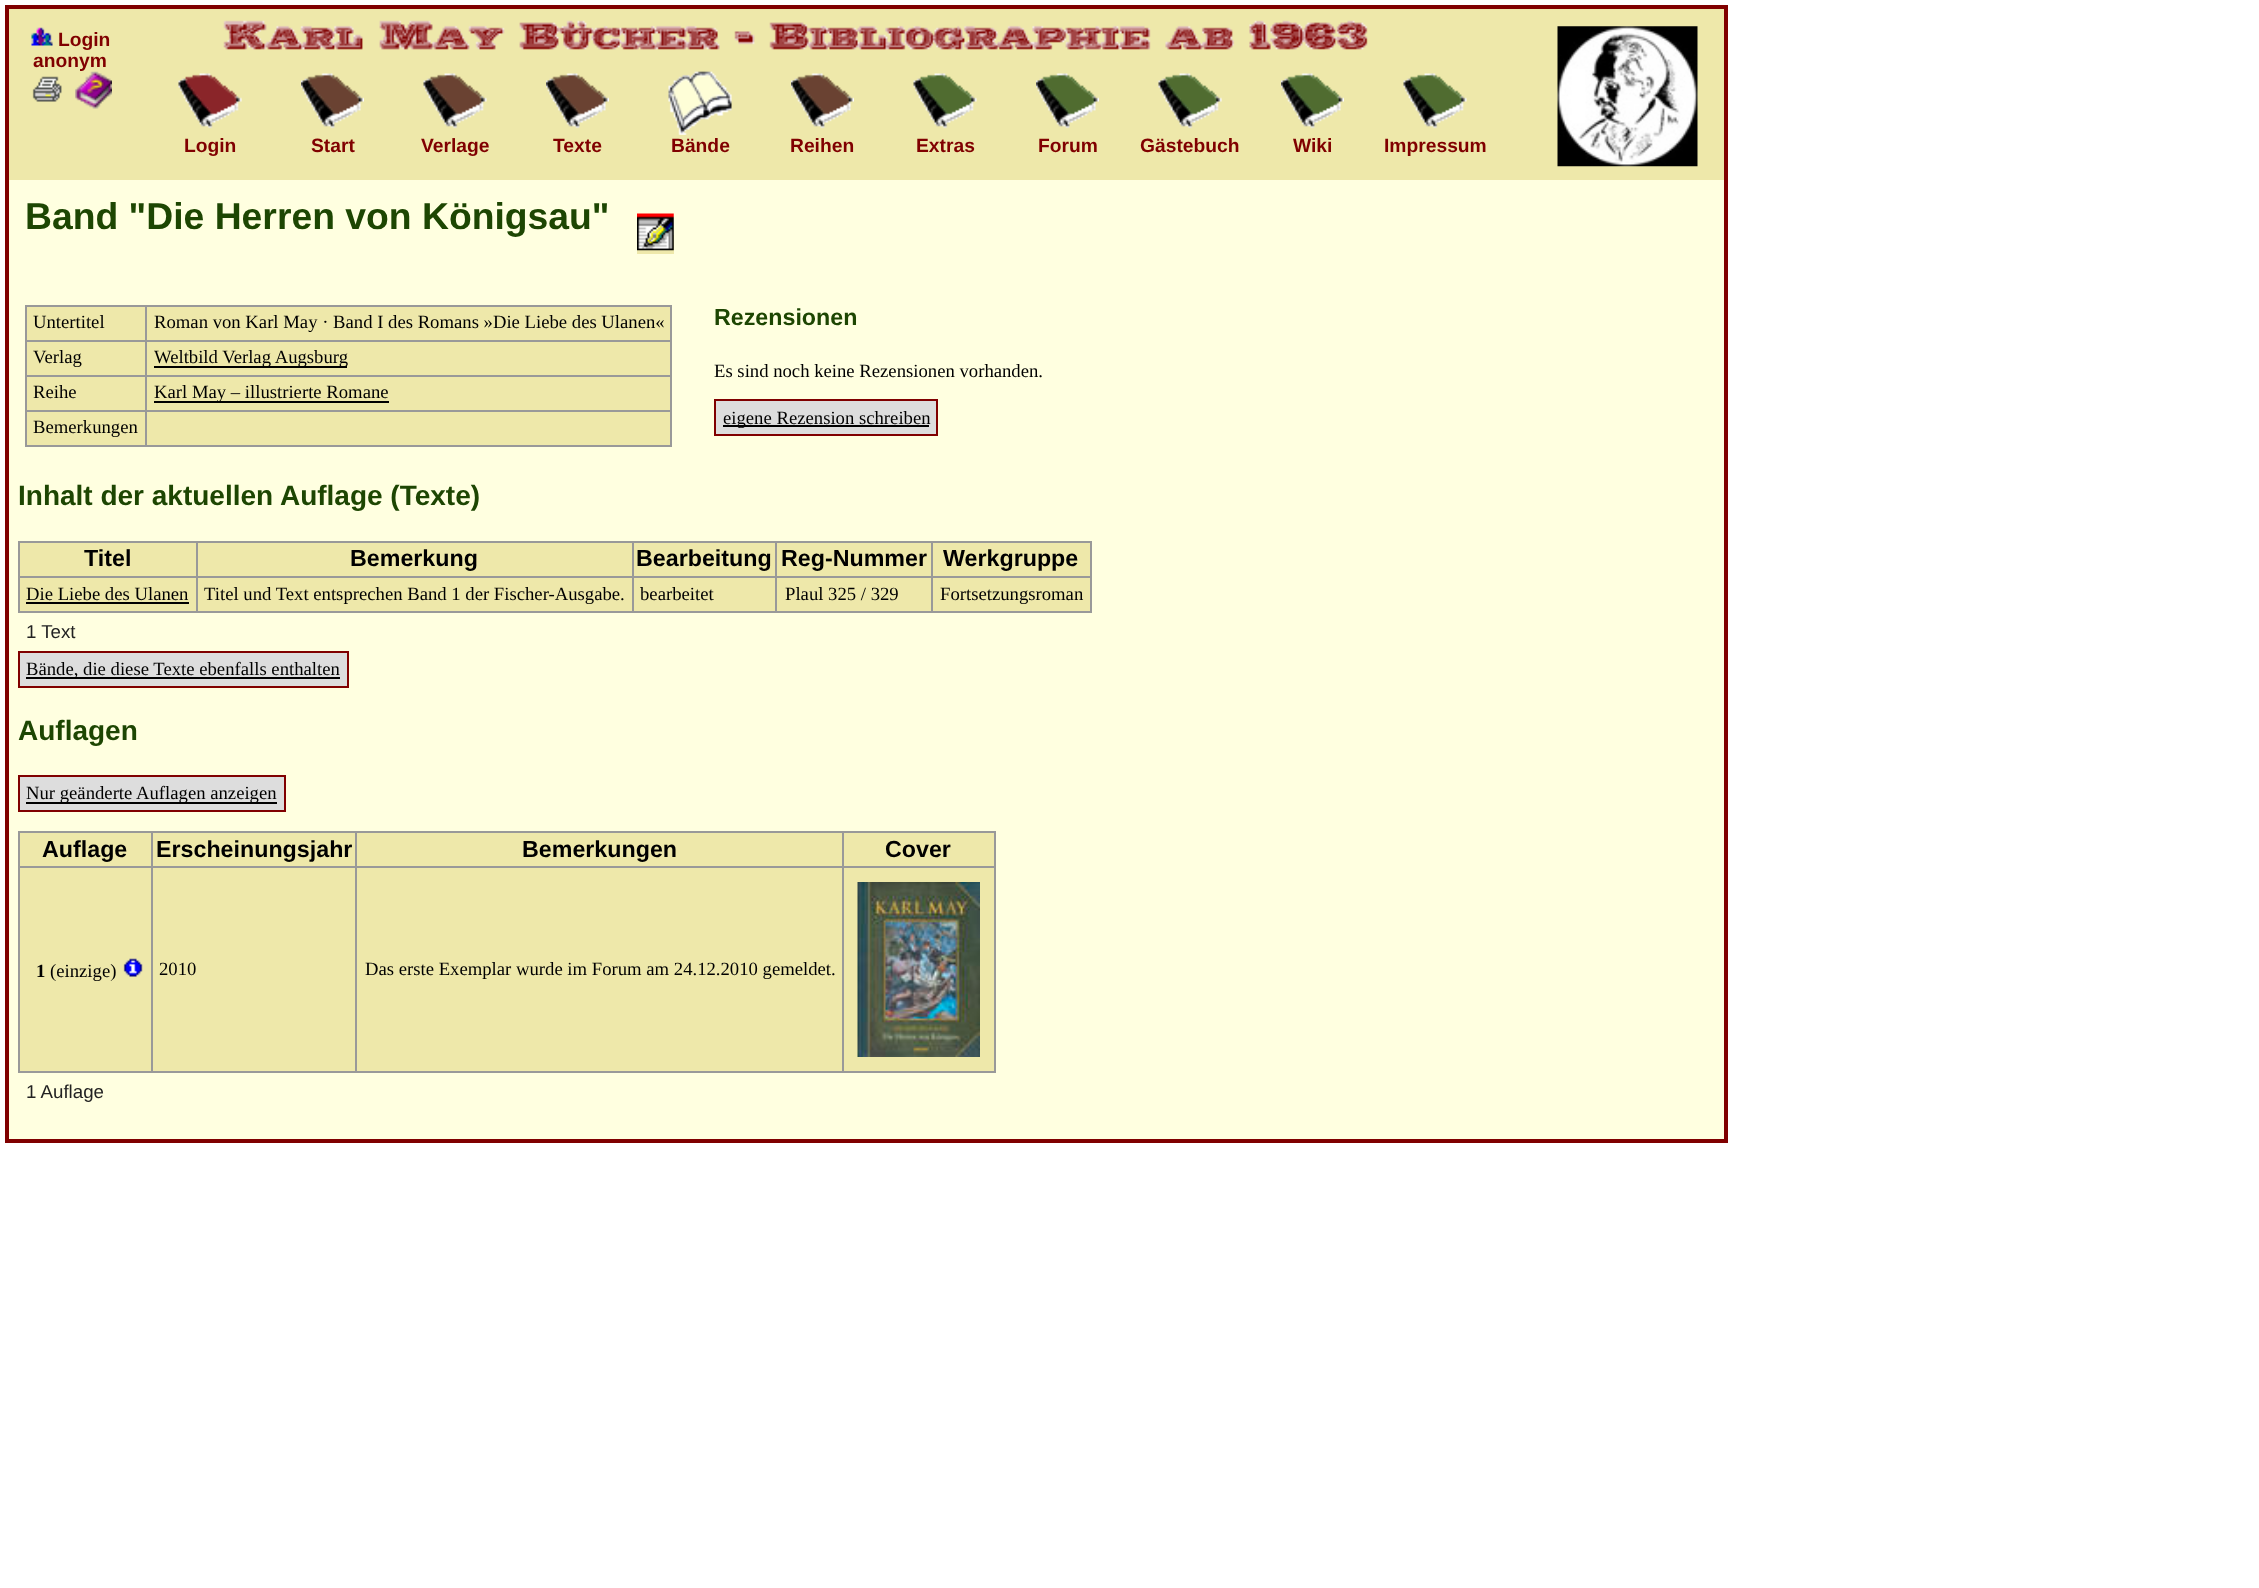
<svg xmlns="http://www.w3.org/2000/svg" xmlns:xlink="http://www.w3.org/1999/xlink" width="2259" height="1588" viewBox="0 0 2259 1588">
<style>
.cls-1{font:bold 19.25px Liberation Sans;fill:#800000}
.cls-2{font:bold 37.3px Liberation Sans;fill:#1d4602}
.cls-3{font:18.7px Liberation Serif;fill:#000000}
.cls-4{font:bold 23.25px Liberation Sans;fill:#1d4602}
.cls-5{font:bold 28px Liberation Sans;fill:#1d4602}
.cls-6{font:bold 23.25px Liberation Sans;fill:#000000}
.cls-7{font:18.7px Liberation Sans;fill:#222222}
.cls-8{font:bold 18.7px Liberation Serif;fill:#000000}
</style>
<rect width="100%" height="100%" fill="#ffffff"/>
<rect fill="#eee8aa" x="9" y="9" width="1715" height="171"/>
<rect fill="#800000" x="5" y="5" width="1722" height="4"/>
<rect fill="#800000" x="1724" y="5" width="4" height="1138"/>
<rect fill="#800000" x="5" y="5" width="4" height="179"/>
<image xlink:href="image0.png" x="31" y="27" width="22" height="19"/>
<image xlink:href="image1.png" x="32" y="76" width="30" height="26"/>
<image xlink:href="image2.png" x="75" y="71" width="37" height="38"/>
<image xlink:href="image3.png" x="223" y="20" width="1145" height="30"/>
<image xlink:href="image4.png" x="1557" y="26" width="141" height="141"/>
<image xlink:href="image5.png" x="178" y="73" width="64" height="56"/>
<image xlink:href="image6.png" x="301" y="73" width="63" height="56"/>
<image xlink:href="image7.png" x="423" y="73" width="64" height="56"/>
<image xlink:href="image6.png" x="546" y="73" width="63" height="56"/>
<image xlink:href="image8.png" x="668" y="71" width="64" height="64"/>
<image xlink:href="image9.png" x="791" y="73" width="63" height="56"/>
<image xlink:href="image10.png" x="913" y="73" width="64" height="56"/>
<image xlink:href="image11.png" x="1036" y="73" width="63" height="56"/>
<image xlink:href="image10.png" x="1158" y="73" width="64" height="56"/>
<image xlink:href="image11.png" x="1281" y="73" width="63" height="56"/>
<image xlink:href="image10.png" x="1403" y="73" width="64" height="56"/>
<rect fill="#ffffe0" x="9" y="180" width="1715" height="959"/>
<rect fill="#800000" x="5" y="1139" width="1722" height="4"/>
<rect fill="#800000" x="5" y="180" width="4" height="963"/>
<rect fill="#eee8aa" x="637" y="235" width="37" height="19"/>
<image xlink:href="image12.png" x="637" y="213" width="37" height="38"/>
<rect fill="#eee8aa" x="27" y="307" width="118" height="33"/>
<rect fill="#999999" x="145" y="305" width="527" height="2"/>
<rect fill="#999999" x="145" y="340" width="527" height="2"/>
<rect fill="#999999" x="145" y="375" width="527" height="2"/>
<rect fill="#999999" x="145" y="410" width="527" height="2"/>
<rect fill="#999999" x="670" y="410" width="2" height="36"/>
<rect fill="#999999" x="145" y="445" width="527" height="2"/>
<rect fill="#999999" x="145" y="410" width="2" height="36"/>
<rect fill="#999999" x="25" y="410" width="122" height="2"/>
<rect fill="#999999" x="145" y="375" width="2" height="36"/>
<rect fill="#999999" x="25" y="375" width="122" height="2"/>
<rect fill="#999999" x="145" y="340" width="2" height="36"/>
<rect fill="#999999" x="25" y="340" width="122" height="2"/>
<rect fill="#999999" x="145" y="305" width="2" height="36"/>
<rect fill="#999999" x="25" y="305" width="122" height="2"/>
<rect fill="#999999" x="25" y="445" width="122" height="2"/>
<rect fill="#999999" x="25" y="410" width="2" height="36"/>
<rect fill="#999999" x="25" y="375" width="2" height="36"/>
<rect fill="#999999" x="25" y="340" width="2" height="36"/>
<rect fill="#999999" x="25" y="305" width="2" height="36"/>
<rect fill="#eee8aa" x="147" y="307" width="523" height="33"/>
<rect fill="#999999" x="670" y="375" width="2" height="36"/>
<rect fill="#999999" x="670" y="340" width="2" height="36"/>
<rect fill="#999999" x="670" y="305" width="2" height="36"/>
<rect fill="#eee8aa" x="27" y="342" width="118" height="33"/>
<rect fill="#eee8aa" x="147" y="342" width="523" height="33"/>
<rect fill="#000000" x="154" y="366" width="193" height="2"/>
<rect fill="#eee8aa" x="27" y="377" width="118" height="33"/>
<rect fill="#eee8aa" x="147" y="377" width="523" height="33"/>
<rect fill="#000000" x="154" y="401" width="235" height="2"/>
<rect fill="#eee8aa" x="27" y="412" width="118" height="33"/>
<rect fill="#eee8aa" x="147" y="412" width="523" height="33"/>
<rect fill="#800000" x="714" y="399" width="224" height="2"/>
<rect fill="#800000" x="936" y="399" width="2" height="37"/>
<rect fill="#800000" x="714" y="434" width="224" height="2"/>
<rect fill="#800000" x="714" y="399" width="2" height="37"/>
<rect fill="#dddddd" x="716" y="401" width="220" height="33"/>
<rect fill="#000000" x="723" y="425" width="206" height="2"/>
<rect fill="#eee8aa" x="20" y="543" width="176" height="33"/>
<rect fill="#999999" x="931" y="541" width="161" height="2"/>
<rect fill="#999999" x="931" y="576" width="161" height="2"/>
<rect fill="#999999" x="1090" y="576" width="2" height="37"/>
<rect fill="#999999" x="931" y="611" width="161" height="2"/>
<rect fill="#999999" x="931" y="576" width="2" height="37"/>
<rect fill="#999999" x="775" y="576" width="158" height="2"/>
<rect fill="#999999" x="931" y="541" width="2" height="37"/>
<rect fill="#999999" x="775" y="541" width="158" height="2"/>
<rect fill="#999999" x="775" y="611" width="158" height="2"/>
<rect fill="#999999" x="775" y="576" width="2" height="37"/>
<rect fill="#999999" x="632" y="576" width="145" height="2"/>
<rect fill="#999999" x="775" y="541" width="2" height="37"/>
<rect fill="#999999" x="632" y="541" width="145" height="2"/>
<rect fill="#999999" x="632" y="611" width="145" height="2"/>
<rect fill="#999999" x="632" y="576" width="2" height="37"/>
<rect fill="#999999" x="196" y="576" width="438" height="2"/>
<rect fill="#999999" x="632" y="541" width="2" height="37"/>
<rect fill="#999999" x="196" y="541" width="438" height="2"/>
<rect fill="#999999" x="196" y="611" width="438" height="2"/>
<rect fill="#999999" x="196" y="576" width="2" height="37"/>
<rect fill="#999999" x="18" y="576" width="180" height="2"/>
<rect fill="#999999" x="196" y="541" width="2" height="37"/>
<rect fill="#999999" x="18" y="541" width="180" height="2"/>
<rect fill="#999999" x="18" y="611" width="180" height="2"/>
<rect fill="#999999" x="18" y="576" width="2" height="37"/>
<rect fill="#999999" x="18" y="541" width="2" height="37"/>
<rect fill="#eee8aa" x="198" y="543" width="434" height="33"/>
<rect fill="#eee8aa" x="634" y="543" width="141" height="33"/>
<rect fill="#eee8aa" x="777" y="543" width="154" height="33"/>
<rect fill="#eee8aa" x="933" y="543" width="157" height="33"/>
<rect fill="#999999" x="1090" y="541" width="2" height="37"/>
<rect fill="#eee8aa" x="20" y="578" width="176" height="33"/>
<rect fill="#000000" x="26" y="602" width="163" height="2"/>
<rect fill="#eee8aa" x="198" y="578" width="434" height="33"/>
<rect fill="#eee8aa" x="634" y="578" width="141" height="33"/>
<rect fill="#eee8aa" x="777" y="578" width="154" height="33"/>
<rect fill="#eee8aa" x="933" y="578" width="157" height="33"/>
<rect fill="#800000" x="18" y="651" width="330" height="2"/>
<rect fill="#800000" x="347" y="651" width="2" height="37"/>
<rect fill="#800000" x="18" y="686" width="330" height="2"/>
<rect fill="#800000" x="18" y="651" width="2" height="37"/>
<rect fill="#dddddd" x="20" y="653" width="327" height="33"/>
<rect fill="#000000" x="26" y="677" width="314" height="2"/>
<rect fill="#800000" x="18" y="775" width="267" height="2"/>
<rect fill="#800000" x="284" y="775" width="2" height="37"/>
<rect fill="#800000" x="18" y="810" width="267" height="2"/>
<rect fill="#800000" x="18" y="775" width="2" height="37"/>
<rect fill="#dddddd" x="20" y="777" width="264" height="33"/>
<rect fill="#000000" x="26" y="802" width="251" height="2"/>
<rect fill="#eee8aa" x="20" y="833" width="131" height="33"/>
<rect fill="#999999" x="842" y="831" width="154" height="2"/>
<rect fill="#999999" x="842" y="866" width="154" height="2"/>
<rect fill="#999999" x="994" y="866" width="2" height="207"/>
<rect fill="#999999" x="842" y="1071" width="154" height="2"/>
<rect fill="#999999" x="842" y="866" width="2" height="207"/>
<rect fill="#999999" x="355" y="866" width="489" height="2"/>
<rect fill="#999999" x="842" y="831" width="2" height="37"/>
<rect fill="#999999" x="355" y="831" width="489" height="2"/>
<rect fill="#999999" x="355" y="1071" width="489" height="2"/>
<rect fill="#999999" x="355" y="866" width="2" height="207"/>
<rect fill="#999999" x="151" y="866" width="206" height="2"/>
<rect fill="#999999" x="355" y="831" width="2" height="37"/>
<rect fill="#999999" x="151" y="831" width="206" height="2"/>
<rect fill="#999999" x="151" y="1071" width="206" height="2"/>
<rect fill="#999999" x="151" y="866" width="2" height="207"/>
<rect fill="#999999" x="18" y="866" width="134" height="2"/>
<rect fill="#999999" x="151" y="831" width="2" height="37"/>
<rect fill="#999999" x="18" y="831" width="134" height="2"/>
<rect fill="#999999" x="18" y="1071" width="134" height="2"/>
<rect fill="#999999" x="18" y="866" width="2" height="207"/>
<rect fill="#999999" x="18" y="831" width="2" height="37"/>
<rect fill="#eee8aa" x="153" y="833" width="202" height="33"/>
<rect fill="#eee8aa" x="357" y="833" width="485" height="33"/>
<rect fill="#eee8aa" x="844" y="833" width="150" height="33"/>
<rect fill="#999999" x="994" y="831" width="2" height="37"/>
<rect fill="#eee8aa" x="20" y="868" width="131" height="203"/>
<image xlink:href="image13.png" x="123" y="958" width="20" height="19"/>
<rect fill="#eee8aa" x="153" y="868" width="202" height="203"/>
<rect fill="#eee8aa" x="357" y="868" width="485" height="203"/>
<rect fill="#eee8aa" x="844" y="868" width="150" height="203"/>
<image xlink:href="image14.png" x="857" y="882" width="123" height="175"/>
<text class="cls-1" x="58" y="46">Login</text>
<text class="cls-1" x="33" y="67">anonym</text>
<text class="cls-1" x="184" y="152">Login</text>
<text class="cls-1" x="311" y="152">Start</text>
<text class="cls-1" x="421" y="152">Verlage</text>
<text class="cls-1" x="553" y="152">Texte</text>
<text class="cls-1" x="671" y="152">Bände</text>
<text class="cls-1" x="790" y="152">Reihen</text>
<text class="cls-1" x="916" y="152">Extras</text>
<text class="cls-1" x="1038" y="152">Forum</text>
<text class="cls-1" x="1140" y="152">Gästebuch</text>
<text class="cls-1" x="1293" y="152">Wiki</text>
<text class="cls-1" x="1384" y="152">Impressum</text>
<text class="cls-2" x="25" y="229">Band "Die Herren von Königsau"</text>
<text class="cls-3" x="33" y="328">Untertitel</text>
<text class="cls-3" x="154" y="328">Roman von Karl May · Band I des Romans »Die Liebe des Ulanen«</text>
<text class="cls-3" x="33" y="363">Verlag</text>
<text class="cls-3" x="154" y="363">Weltbild Verlag Augsburg</text>
<text class="cls-3" x="33" y="398">Reihe</text>
<text class="cls-3" x="154" y="398">Karl May – illustrierte Romane</text>
<text class="cls-3" x="33" y="433">Bemerkungen</text>
<text class="cls-4" x="714" y="325">Rezensionen</text>
<text class="cls-3" x="714" y="377">Es sind noch keine Rezensionen vorhanden.</text>
<text class="cls-3" x="723" y="424">eigene Rezension schreiben</text>
<text class="cls-5" x="18" y="505">Inhalt der aktuellen Auflage (Texte)</text>
<text class="cls-6" x="84" y="566">Titel</text>
<text class="cls-6" x="350" y="566">Bemerkung</text>
<text class="cls-6" x="636" y="566">Bearbeitung</text>
<text class="cls-6" x="781" y="566">Reg-Nummer</text>
<text class="cls-6" x="943" y="566">Werkgruppe</text>
<text class="cls-3" x="26" y="600">Die Liebe des Ulanen</text>
<text class="cls-3" x="204" y="600">Titel und Text entsprechen Band 1 der Fischer-Ausgabe.</text>
<text class="cls-3" x="640" y="600">bearbeitet</text>
<text class="cls-3" x="785" y="600">Plaul 325 / 329</text>
<text class="cls-3" x="940" y="600">Fortsetzungsroman</text>
<text class="cls-7" x="26" y="638">1 Text</text>
<text class="cls-3" x="26" y="675">Bände, die diese Texte ebenfalls enthalten</text>
<text class="cls-5" x="18" y="740">Auflagen</text>
<text class="cls-3" x="26" y="799">Nur geänderte Auflagen anzeigen</text>
<text class="cls-6" x="42" y="857">Auflage</text>
<text class="cls-6" x="156" y="857">Erscheinungsjahr</text>
<text class="cls-6" x="522" y="857">Bemerkungen</text>
<text class="cls-6" x="885" y="857">Cover</text>
<text class="cls-8" x="36" y="977">1</text>
<text class="cls-3" x="50" y="977">(einzige)</text>
<text class="cls-3" x="159" y="975">2010</text>
<text class="cls-3" x="365" y="975">Das erste Exemplar wurde im Forum am 24.12.2010 gemeldet.</text>
<text class="cls-7" x="26" y="1098">1 Auflage</text>
</svg>
